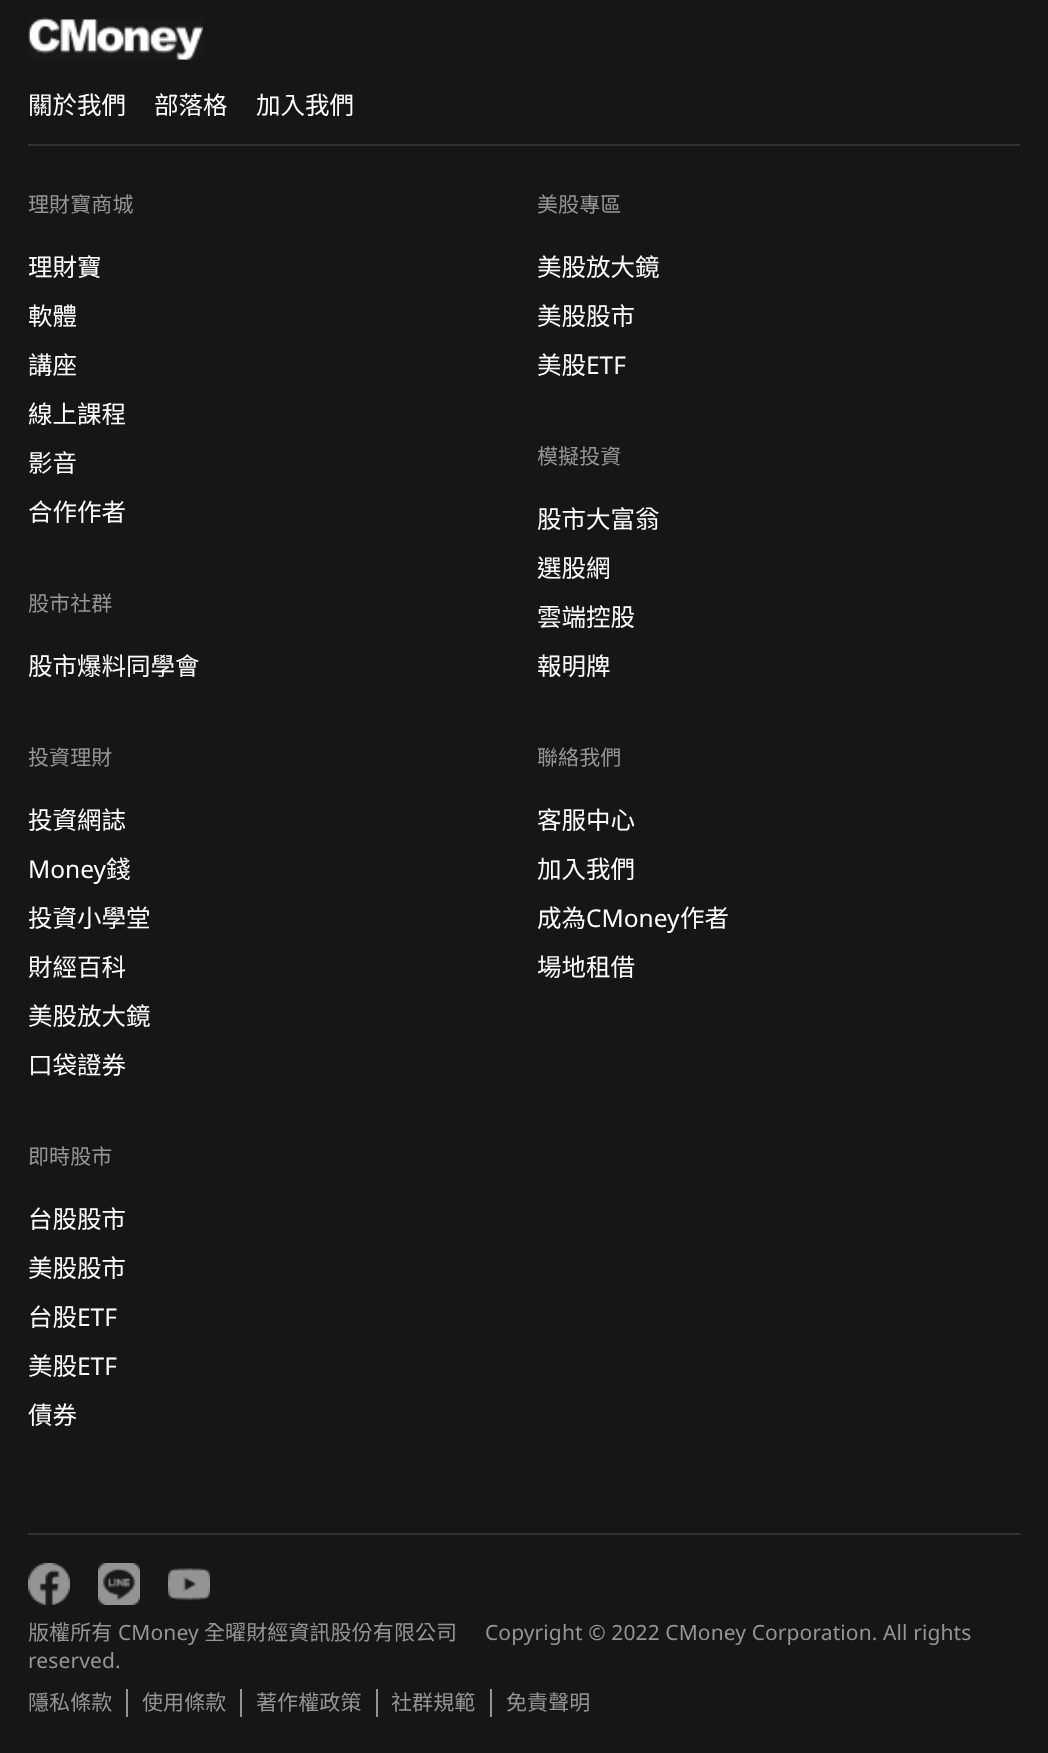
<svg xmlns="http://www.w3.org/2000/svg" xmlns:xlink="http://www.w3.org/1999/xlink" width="1048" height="1753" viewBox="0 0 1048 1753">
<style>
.cls-1{font:24.5px Noto Sans CJK TC;fill:#ffffff}
.cls-2{font:21px Noto Sans CJK TC;letter-spacing:0.1px;fill:#959595}
.cls-3{font:24.5px Noto Sans;fill:#ffffff}
.cls-4{font:21px Noto Sans;letter-spacing:0.1px;fill:#959595}
</style>
<rect width="100%" height="100%" fill="#161616"/>
<image xlink:href="image0.png" x="28" y="17" width="175" height="43"/>
<rect fill="#323232" x="28" y="144" width="992" height="2"/>
<rect fill="#323232" x="28" y="1533" width="992" height="2"/>
<image xlink:href="image1.png" x="28" y="1563" width="42" height="42"/>
<image xlink:href="image2.png" x="98" y="1563" width="42" height="42"/>
<image xlink:href="image3.png" x="168" y="1568" width="42" height="33"/>
<rect fill="#949494" x="126" y="1689" width="2" height="28"/>
<rect fill="#949494" x="240" y="1689" width="2" height="28"/>
<rect fill="#949494" x="376" y="1689" width="2" height="28"/>
<rect fill="#949494" x="490" y="1689" width="2" height="28"/>
<text class="cls-1" x="28" y="114">關於我們</text>
<text class="cls-1" x="154" y="114">部落格</text>
<text class="cls-1" x="256" y="114">加入我們</text>
<text class="cls-2" x="28" y="212">理財寶商城</text>
<text class="cls-1" x="28" y="276">理財寶</text>
<text class="cls-1" x="28" y="325">軟體</text>
<text class="cls-1" x="28" y="374">講座</text>
<text class="cls-1" x="28" y="423">線上課程</text>
<text class="cls-1" x="28" y="472">影音</text>
<text class="cls-1" x="28" y="521">合作作者</text>
<text class="cls-2" x="537" y="212">美股專區</text>
<text class="cls-1" x="537" y="276">美股放大鏡</text>
<text class="cls-1" x="537" y="325">美股股市</text>
<text class="cls-1" x="537" y="374">美股</text>
<text class="cls-3" x="586" y="374">ETF</text>
<text class="cls-2" x="28" y="611">股市社群</text>
<text class="cls-1" x="28" y="675">股市爆料同學會</text>
<text class="cls-2" x="537" y="464">模擬投資</text>
<text class="cls-1" x="537" y="528">股市大富翁</text>
<text class="cls-1" x="537" y="577">選股網</text>
<text class="cls-1" x="537" y="626">雲端控股</text>
<text class="cls-1" x="537" y="675">報明牌</text>
<text class="cls-2" x="28" y="765">投資理財</text>
<text class="cls-1" x="28" y="829">投資網誌</text>
<text class="cls-3" x="28" y="878">Money</text>
<text class="cls-1" x="106" y="878">錢</text>
<text class="cls-1" x="28" y="927">投資小學堂</text>
<text class="cls-1" x="28" y="976">財經百科</text>
<text class="cls-1" x="28" y="1025">美股放大鏡</text>
<text class="cls-1" x="28" y="1074">口袋證券</text>
<text class="cls-2" x="537" y="765">聯絡我們</text>
<text class="cls-1" x="537" y="829">客服中心</text>
<text class="cls-1" x="537" y="878">加入我們</text>
<text class="cls-1" x="537" y="927">成為</text>
<text class="cls-3" x="586" y="927">CMoney</text>
<text class="cls-1" x="680" y="927">作者</text>
<text class="cls-1" x="537" y="976">場地租借</text>
<text class="cls-2" x="28" y="1164">即時股市</text>
<text class="cls-1" x="28" y="1228">台股股市</text>
<text class="cls-1" x="28" y="1277">美股股市</text>
<text class="cls-1" x="28" y="1326">台股</text>
<text class="cls-3" x="77" y="1326">ETF</text>
<text class="cls-1" x="28" y="1375">美股</text>
<text class="cls-3" x="77" y="1375">ETF</text>
<text class="cls-1" x="28" y="1424">債券</text>
<text class="cls-2" x="28" y="1640">版權所有</text>
<text class="cls-4" x="118" y="1640">CMoney</text>
<text class="cls-2" x="204" y="1640">全曜財經資訊股份有限公司</text>
<text class="cls-4" x="485" y="1640">Copyright © 2022 CMoney Corporation. All rights</text>
<text class="cls-4" x="28" y="1668">reserved.</text>
<text class="cls-2" x="28" y="1710">隱私條款</text>
<text class="cls-2" x="142" y="1710">使用條款</text>
<text class="cls-2" x="256" y="1710">著作權政策</text>
<text class="cls-2" x="391" y="1710">社群規範</text>
<text class="cls-2" x="506" y="1710">免責聲明</text>
</svg>
